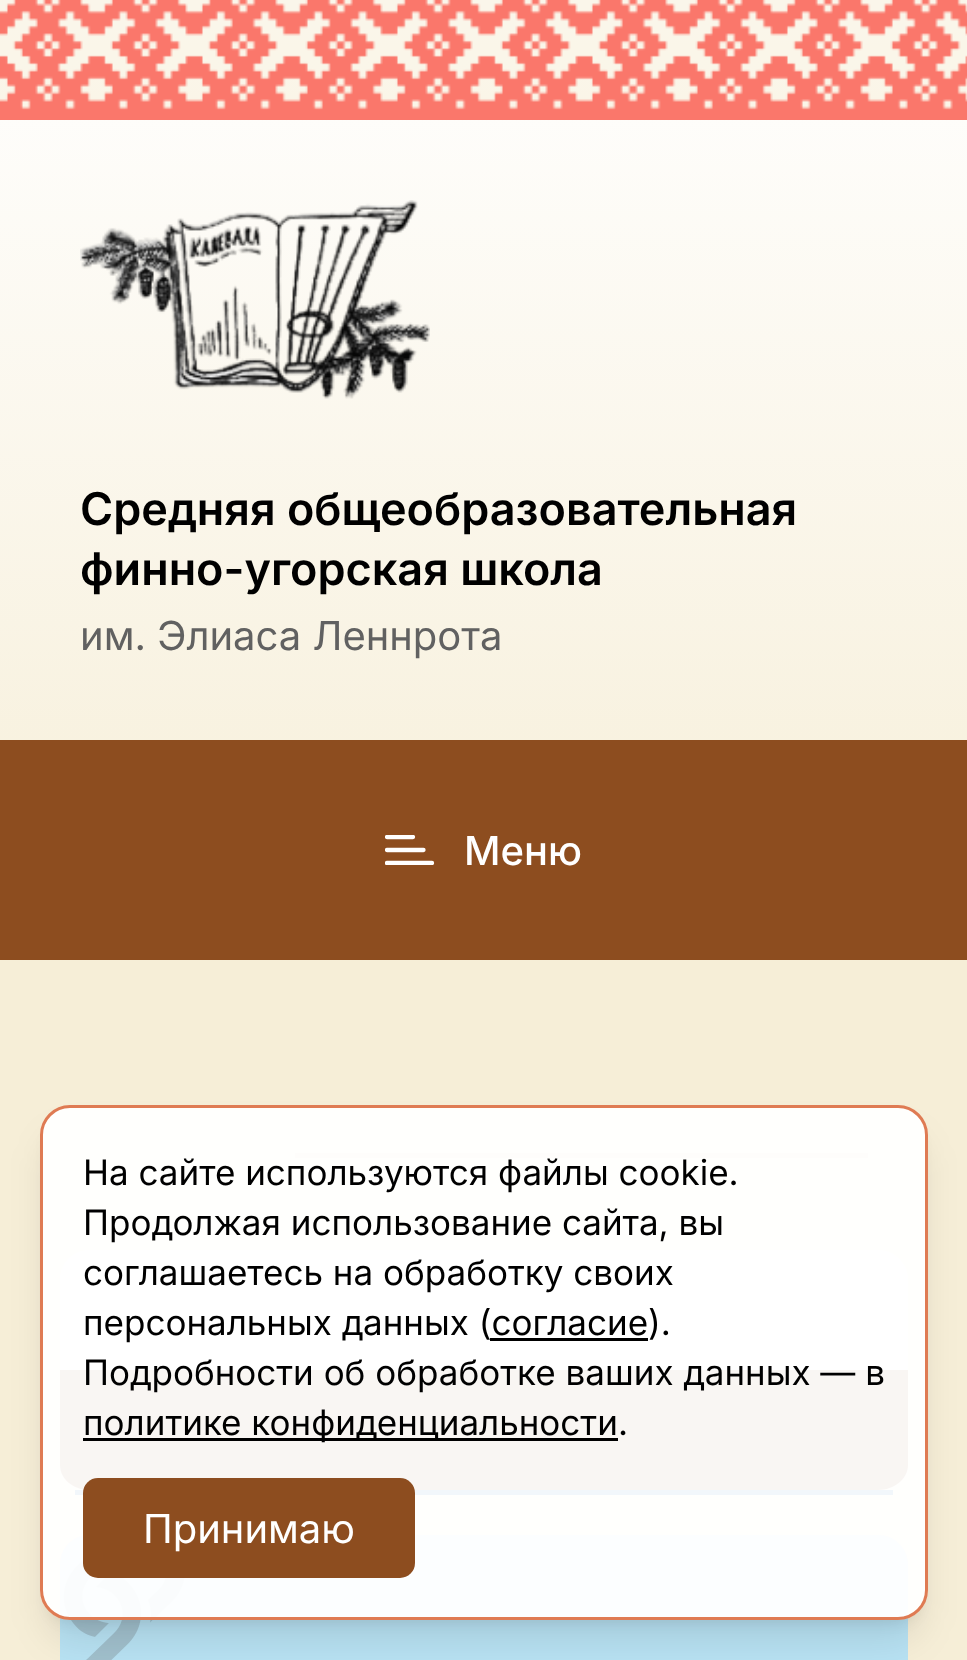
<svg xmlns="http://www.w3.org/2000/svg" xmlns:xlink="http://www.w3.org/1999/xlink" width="967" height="1660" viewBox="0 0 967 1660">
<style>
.cls-1{font:600 45px Inter;fill:#000000}
.cls-2{font:40px Inter;fill:#616161}
.cls-3{font:500 40px Inter;fill:#ffffff}
.cls-4{font:35px Inter;fill:#000000}
.cls-5{font:40px Inter;fill:#ffffff}
</style>
<defs>
<linearGradient id="g1" gradientUnits="userSpaceOnUse" x1="484" y1="960" x2="484" y2="0"><stop offset="0" stop-color="#f6eed7"/><stop offset="1" stop-color="#ffffff"/></linearGradient>
<clipPath id="clip1"><rect x="385" y="835" width="50" height="30"/></clipPath>
<clipPath id="clip2"><path d="M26 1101H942V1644H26ZM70 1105H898C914.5 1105 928 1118.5 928 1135V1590C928 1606.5 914.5 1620 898 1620H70C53.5 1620 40 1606.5 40 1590V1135C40 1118.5 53.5 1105 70 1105Z" clip-rule="evenodd"/></clipPath>
<clipPath id="clip3"><path d="M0 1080H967V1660H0ZM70 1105H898C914.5 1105 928 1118.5 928 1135V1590C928 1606.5 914.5 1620 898 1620H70C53.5 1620 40 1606.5 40 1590V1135C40 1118.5 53.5 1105 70 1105Z" clip-rule="evenodd"/></clipPath>
</defs>
<rect width="100%" height="100%" fill="#f6eed7"/>
<rect fill="url(#g1)" x="0" y="0" width="967" height="740"/>
<image xlink:href="image0.png" x="0" y="0" width="967" height="120"/>
<image xlink:href="image1.png" x="80" y="200" width="350" height="199"/>
<rect fill="#8d4d1f" x="0" y="740" width="967" height="220"/>
<g clip-path="url(#clip1)">
<path fill="none" stroke="#ffffff" stroke-width="4.3" stroke-linecap="round" d="M387 837H413M387 850H423.5M387 863H432"/>
</g>
<rect fill="#e1ceb2" x="295" y="1153" width="573" height="5"/>
<rect fill="#005ca9" x="75" y="1490" width="818" height="5"/>
<path fill="#ffffff" d="M90 1250C73 1250 60 1263 60 1280V1370H908V1280C908 1263 894 1250 878 1250Z"/>
<path fill="#8d4d1f" d="M60 1370V1465C60 1479 73 1490 90 1490H878C894 1490 908 1479 908 1465V1370Z"/>
<path fill="#b8e2f3" d="M90 1535H878C894 1535 908 1548 908 1565V1660C908 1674 894 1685 878 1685H90C73 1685 60 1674 60 1660V1565C60 1548 73 1535 90 1535Z"/>
<image xlink:href="image2.png" x="63" y="1560" width="122" height="100"/>
<g clip-path="url(#clip2)">
<rect fill="#000000" fill-opacity="0.1" filter="blur(7.5px)" x="50" y="1125" width="868" height="495" rx="20"/>
</g>
<g clip-path="url(#clip3)">
<rect fill="#000000" fill-opacity="0.1" filter="blur(19px)" x="48" y="1138" width="872" height="500" rx="23"/>
</g>
<rect fill="#ffffff" fill-opacity="0.95" stroke="#df7b53" stroke-width="3" x="41.5" y="1106.5" width="885" height="512" rx="28.5"/>
<rect fill="#000000" x="490" y="1338" width="158" height="3"/>
<rect fill="#000000" x="83" y="1438" width="535" height="3"/>
<rect fill="#8d4d1f" x="83" y="1478" width="332" height="100" rx="15"/>
<text class="cls-1"><tspan x="80" y="525">Средняя общеобразовательная</tspan><tspan x="80" y="585">финно-угорская школа</tspan></text>
<text class="cls-2" x="80" y="650">им. Элиаса Леннрота</text>
<text class="cls-3" x="464" y="865">Меню</text>
<text class="cls-4"><tspan x="83" y="1185">На сайте используются файлы cookie.</tspan><tspan x="83" y="1235">Продолжая использование сайта, вы</tspan><tspan x="83" y="1285">соглашаетесь на обработку своих</tspan><tspan x="83" y="1335">персональных данных (согласие).</tspan><tspan x="83" y="1385">Подробности об обработке ваших данных — в</tspan><tspan x="83" y="1435">политике конфиденциальности.</tspan></text>
<text class="cls-5" x="143" y="1543">Принимаю</text>
</svg>
